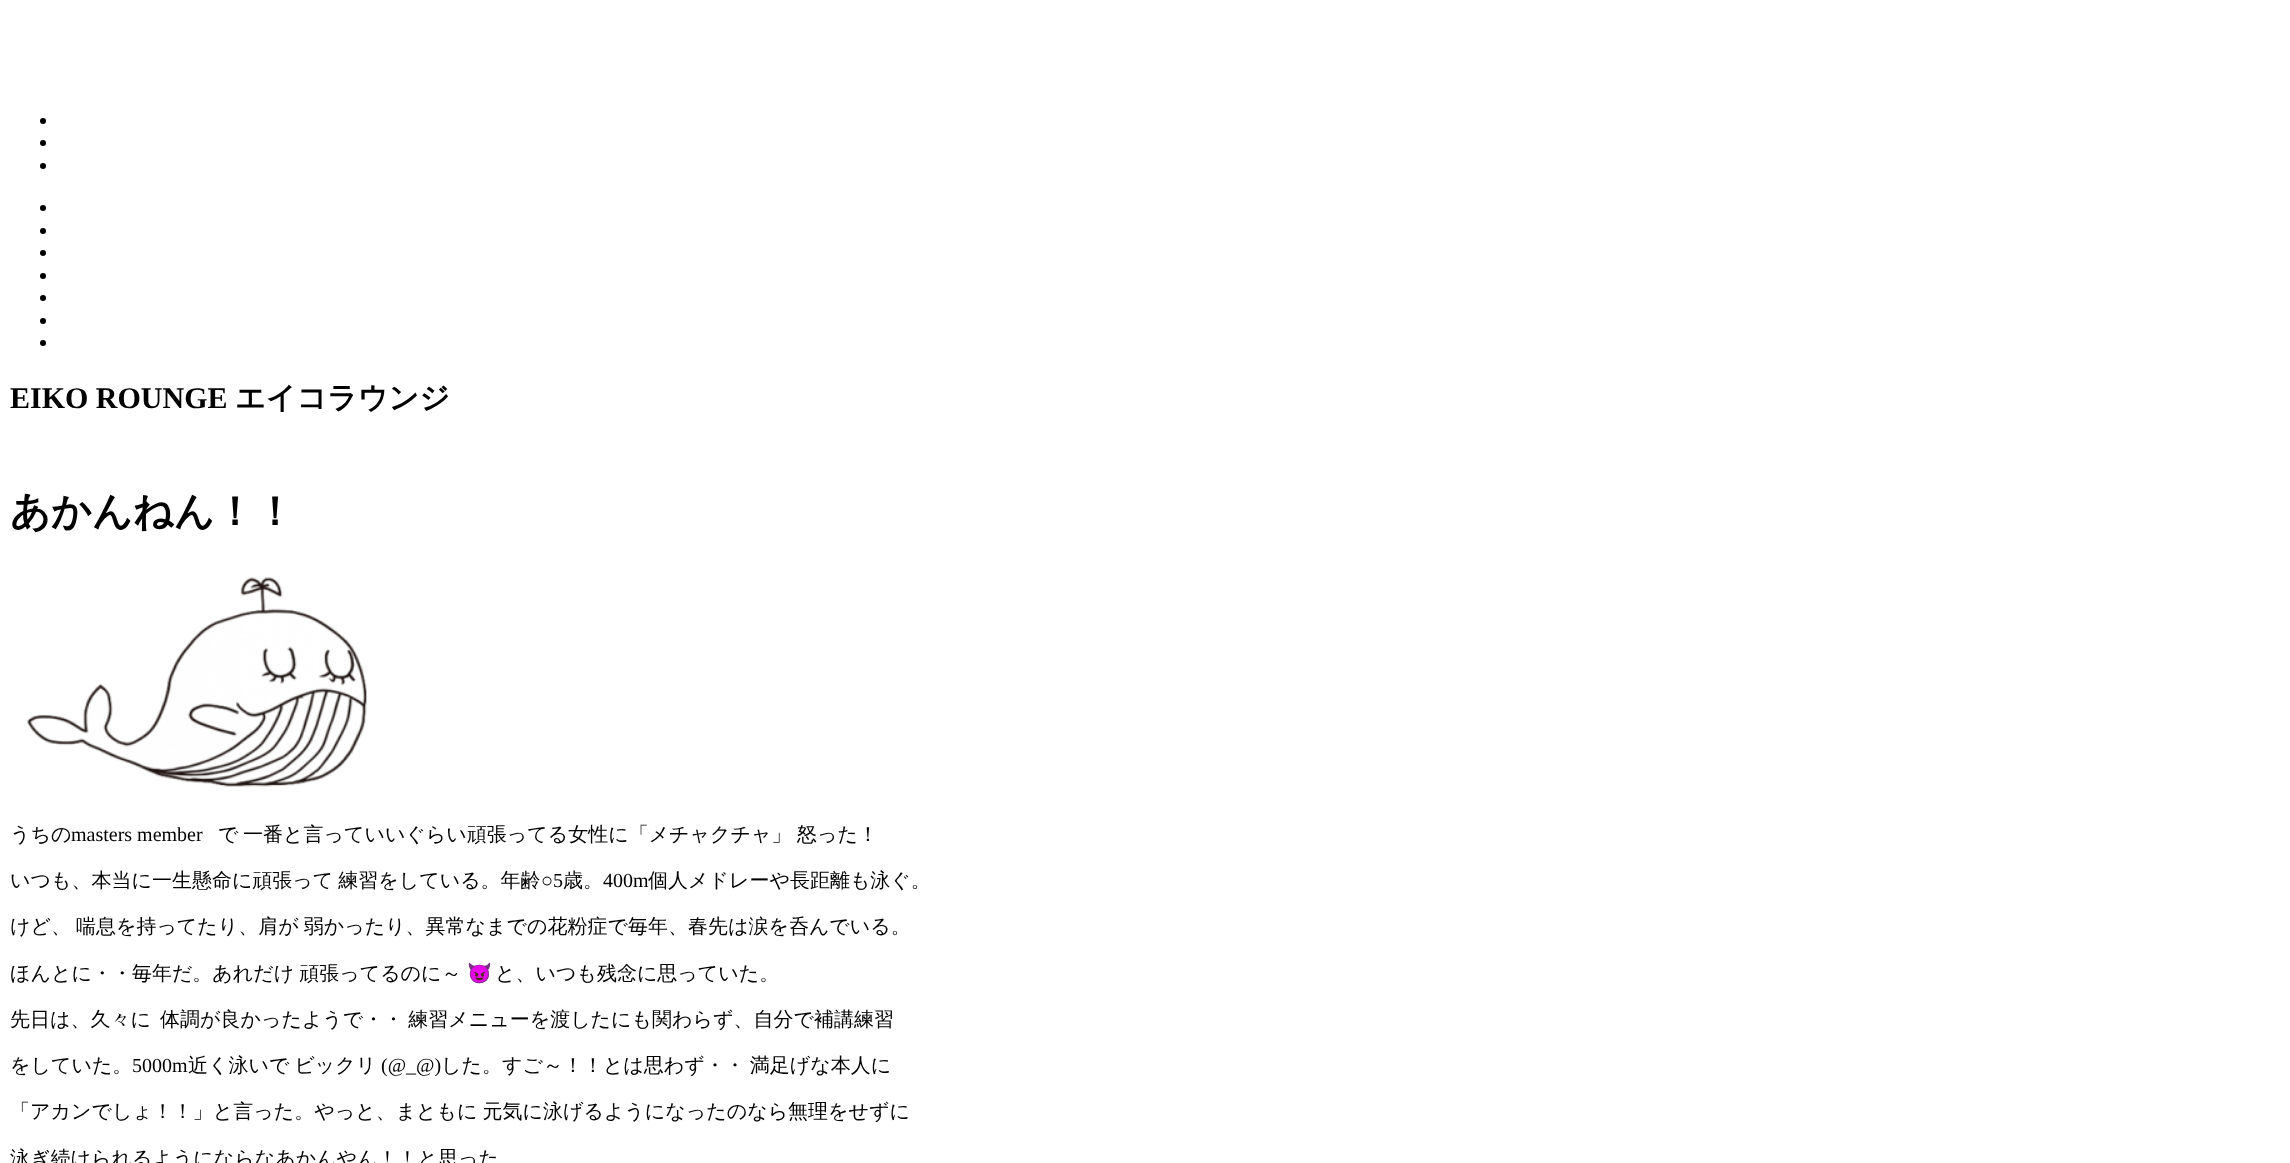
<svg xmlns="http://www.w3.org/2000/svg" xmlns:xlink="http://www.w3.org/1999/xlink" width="2290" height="1163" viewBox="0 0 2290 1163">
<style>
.cls-1{font:bold 30px Liberation Serif;fill:#000000}
.cls-2{font:bold 30px WenQuanYi Zen Hei;fill:#000000}
.cls-3{font:bold 40px WenQuanYi Zen Hei;fill:#000000}
.cls-4{font:500 20px WenQuanYi Zen Hei;fill:#000000}
.cls-5{font:20px Liberation Serif;fill:#000000}
.cls-6{font:20px Noto Color Emoji;fill:#000000}
</style>
<rect width="100%" height="100%" fill="#ffffff"/>
<circle fill="#000000" cx="43" cy="121" r="3"/>
<circle fill="#000000" cx="43" cy="143" r="3"/>
<circle fill="#000000" cx="43" cy="166" r="3"/>
<circle fill="#000000" cx="43" cy="208" r="3"/>
<circle fill="#000000" cx="43" cy="231" r="3"/>
<circle fill="#000000" cx="43" cy="253" r="3"/>
<circle fill="#000000" cx="43" cy="276" r="3"/>
<circle fill="#000000" cx="43" cy="298" r="3"/>
<circle fill="#000000" cx="43" cy="321" r="3"/>
<circle fill="#000000" cx="43" cy="343" r="3"/>
<image xlink:href="image0.png" x="27" y="577" width="340" height="210"/>
<text class="cls-1" x="10" y="408">EIKO ROUNGE</text>
<text class="cls-2" x="235" y="408">エイコラウンジ</text>
<text class="cls-3" x="10" y="525">あかんねん！！</text>
<text class="cls-4" x="10" y="841">うちの</text>
<text class="cls-5" x="71" y="841">masters member</text>
<text class="cls-4" x="218" y="841">で</text>
<text class="cls-4" x="243" y="841">一番と言っていいぐらい頑張ってる女性に「メチャクチャ」</text>
<text class="cls-4" x="797" y="841">怒った！</text>
<text class="cls-4" x="10" y="887" word-spacing="-1">いつも、本当に一生懸命に頑張って 練習をしている。年齢</text>
<text class="cls-5" x="541" y="887">○5</text>
<text class="cls-4" x="563" y="887">歳。</text>
<text class="cls-5" x="603" y="887">400m</text>
<text class="cls-4" x="648" y="887">個人メドレーや長距離も泳ぐ。</text>
<text class="cls-4" x="10" y="933" word-spacing="-1">けど、 喘息を持ってたり、肩が 弱かったり、異常なまでの花粉症で毎年、春先は涙を呑んでいる。</text>
<text class="cls-4" x="10" y="980" word-spacing="-1">ほんとに・・毎年だ。あれだけ 頑張ってるのに～</text>
<text class="cls-6" x="467" y="980">😈</text>
<text class="cls-4" x="495" y="980">と、いつも残念に思っていた。</text>
<text class="cls-4" x="10" y="1026">先日は、久々に</text>
<text class="cls-4" x="160" y="1026" word-spacing="-1">体調が良かったようで・・ 練習メニューを渡したにも関わらず、自分で補講練習</text>
<text class="cls-4" x="10" y="1072">をしていた。</text>
<text class="cls-5" x="132" y="1072">5000m</text>
<text class="cls-4" x="188" y="1072" word-spacing="-1">近く泳いで ビックリ</text>
<text class="cls-5" x="381" y="1072">(@_@)</text>
<text class="cls-4" x="441" y="1072" word-spacing="-1">した。すご～！！とは思わず・・ 満足げな本人に</text>
<text class="cls-4" x="10" y="1118" word-spacing="-1">「アカンでしょ！！」と言った。やっと、まともに 元気に泳げるようになったのなら無理をせずに</text>
<text class="cls-4" x="10" y="1165">泳ぎ続けられるようにならなあかんやん！！と思った</text>
</svg>
